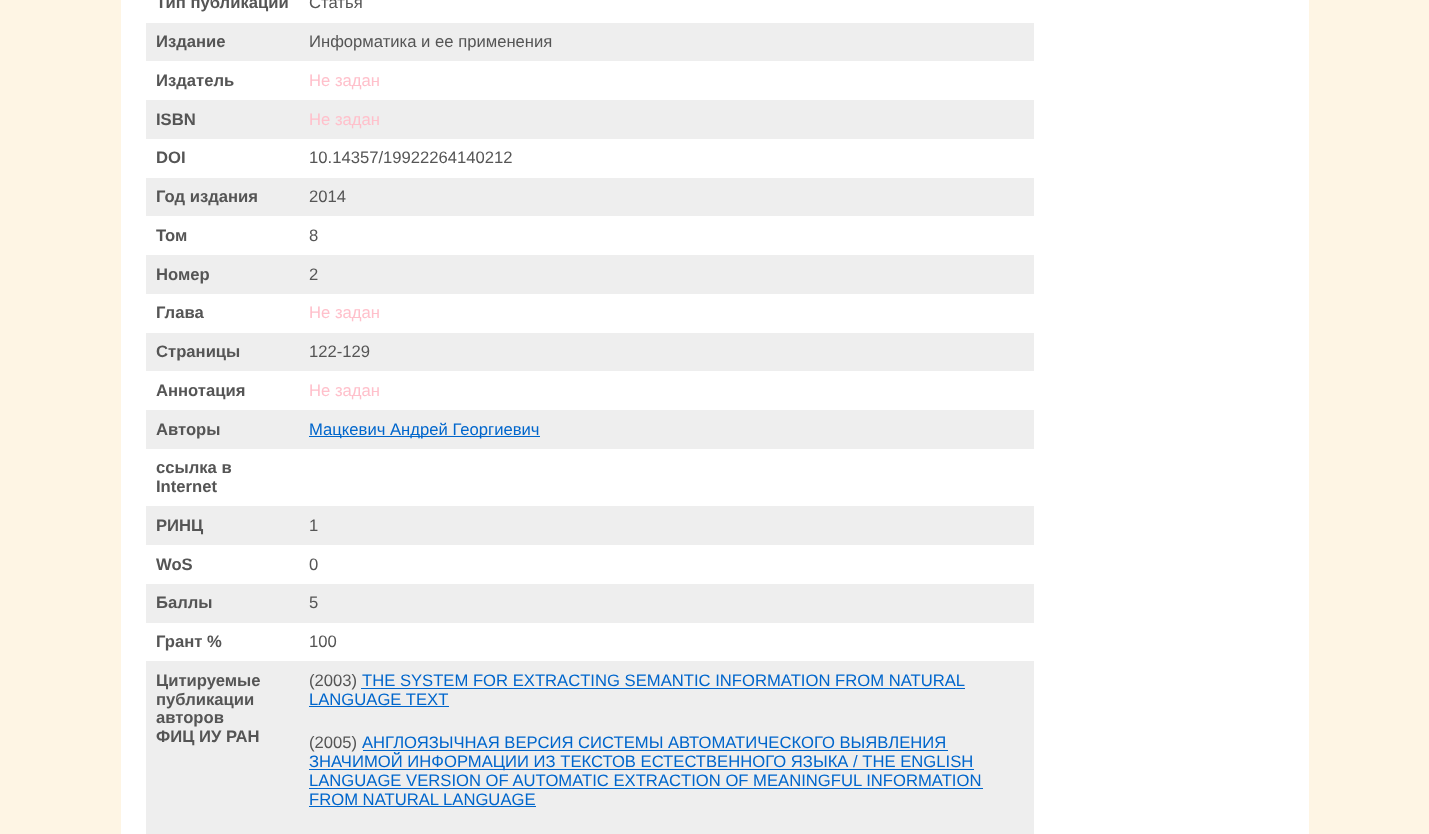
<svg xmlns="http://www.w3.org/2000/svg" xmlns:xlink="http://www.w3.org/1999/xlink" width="1429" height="834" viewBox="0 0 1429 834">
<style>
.cls-1{font:bold 16.65px Liberation Sans;fill:#555555}
.cls-2{font:16.65px Liberation Sans;fill:#555555}
.cls-3{font:16.65px Liberation Sans;fill:#ffc0cb}
.cls-4{font:16.65px Liberation Sans;fill:#0066cc}
</style>
<rect width="100%" height="100%" fill="#fef5e4"/>
<rect fill="#ffffff" x="121" y="0" width="1188" height="834"/>
<rect fill="#eeeeee" x="146" y="23" width="888" height="38"/>
<rect fill="#eeeeee" x="146" y="100" width="888" height="39"/>
<rect fill="#eeeeee" x="146" y="178" width="888" height="38"/>
<rect fill="#eeeeee" x="146" y="255" width="888" height="39"/>
<rect fill="#eeeeee" x="146" y="333" width="888" height="38"/>
<rect fill="#eeeeee" x="146" y="410" width="888" height="39"/>
<rect fill="#0066cc" x="309" y="436" width="231" height="1"/>
<rect fill="#eeeeee" x="146" y="506" width="888" height="39"/>
<rect fill="#eeeeee" x="146" y="584" width="888" height="39"/>
<rect fill="#eeeeee" x="146" y="661" width="888" height="173"/>
<rect fill="#0066cc" x="361" y="688" width="604" height="1"/>
<rect fill="#0066cc" x="309" y="706" width="140" height="1"/>
<rect fill="#0066cc" x="363" y="750" width="585" height="1"/>
<rect fill="#0066cc" x="309" y="769" width="665" height="1"/>
<rect fill="#0066cc" x="309" y="788" width="674" height="1"/>
<rect fill="#0066cc" x="309" y="806" width="227" height="1"/>
<text class="cls-1" x="156" y="8">Тип публикации</text>
<text class="cls-2" x="309" y="8">Статья</text>
<text class="cls-1" x="156" y="47">Издание</text>
<text class="cls-2" x="309" y="47">Информатика и ее применения</text>
<text class="cls-1" x="156" y="86">Издатель</text>
<text class="cls-3" x="309" y="86">Не задан</text>
<text class="cls-1" x="156" y="125">ISBN</text>
<text class="cls-3" x="309" y="125">Не задан</text>
<text class="cls-1" x="156" y="163">DOI</text>
<text class="cls-2" x="309" y="163">10.14357/19922264140212</text>
<text class="cls-1" x="156" y="202">Год издания</text>
<text class="cls-2" x="309" y="202">2014</text>
<text class="cls-1" x="156" y="241">Том</text>
<text class="cls-2" x="309" y="241">8</text>
<text class="cls-1" x="156" y="280">Номер</text>
<text class="cls-2" x="309" y="280">2</text>
<text class="cls-1" x="156" y="318">Глава</text>
<text class="cls-3" x="309" y="318">Не задан</text>
<text class="cls-1" x="156" y="357">Страницы</text>
<text class="cls-2" x="309" y="357">122-129</text>
<text class="cls-1" x="156" y="396">Аннотация</text>
<text class="cls-3" x="309" y="396">Не задан</text>
<text class="cls-1" x="156" y="435">Авторы</text>
<text class="cls-4" x="309" y="435">Мацкевич Андрей Георгиевич</text>
<text class="cls-1"><tspan x="156" y="473">ссылка в</tspan><tspan x="156" y="492">Internet</tspan></text>
<text class="cls-1" x="156" y="531">РИНЦ</text>
<text class="cls-2" x="309" y="531">1</text>
<text class="cls-1" x="156" y="570">WoS</text>
<text class="cls-2" x="309" y="570">0</text>
<text class="cls-1" x="156" y="608">Баллы</text>
<text class="cls-2" x="309" y="608">5</text>
<text class="cls-1" x="156" y="647">Грант %</text>
<text class="cls-2" x="309" y="647">100</text>
<text class="cls-1"><tspan x="156" y="686">Цитируемые</tspan><tspan x="156" y="705">публикации</tspan><tspan x="156" y="723">авторов</tspan><tspan x="156" y="742">ФИЦ ИУ РАН</tspan></text>
<text class="cls-2" x="309" y="686">(2003)</text>
<text class="cls-4" x="362" y="686">THE SYSTEM FOR EXTRACTING SEMANTIC INFORMATION FROM NATURAL</text>
<text class="cls-4" x="309" y="705">LANGUAGE TEXT</text>
<text class="cls-2" x="309" y="748">(2005)</text>
<text class="cls-4" x="362" y="748">АНГЛОЯЗЫЧНАЯ ВЕРСИЯ СИСТЕМЫ АВТОМАТИЧЕСКОГО ВЫЯВЛЕНИЯ</text>
<text class="cls-4"><tspan x="309" y="767">ЗНАЧИМОЙ ИНФОРМАЦИИ ИЗ ТЕКСТОВ ЕСТЕСТВЕННОГО ЯЗЫКА / THE ENGLISH</tspan><tspan x="309" y="786">LANGUAGE VERSION OF AUTOMATIC EXTRACTION OF MEANINGFUL INFORMATION</tspan><tspan x="309" y="805">FROM NATURAL LANGUAGE</tspan></text>
</svg>
